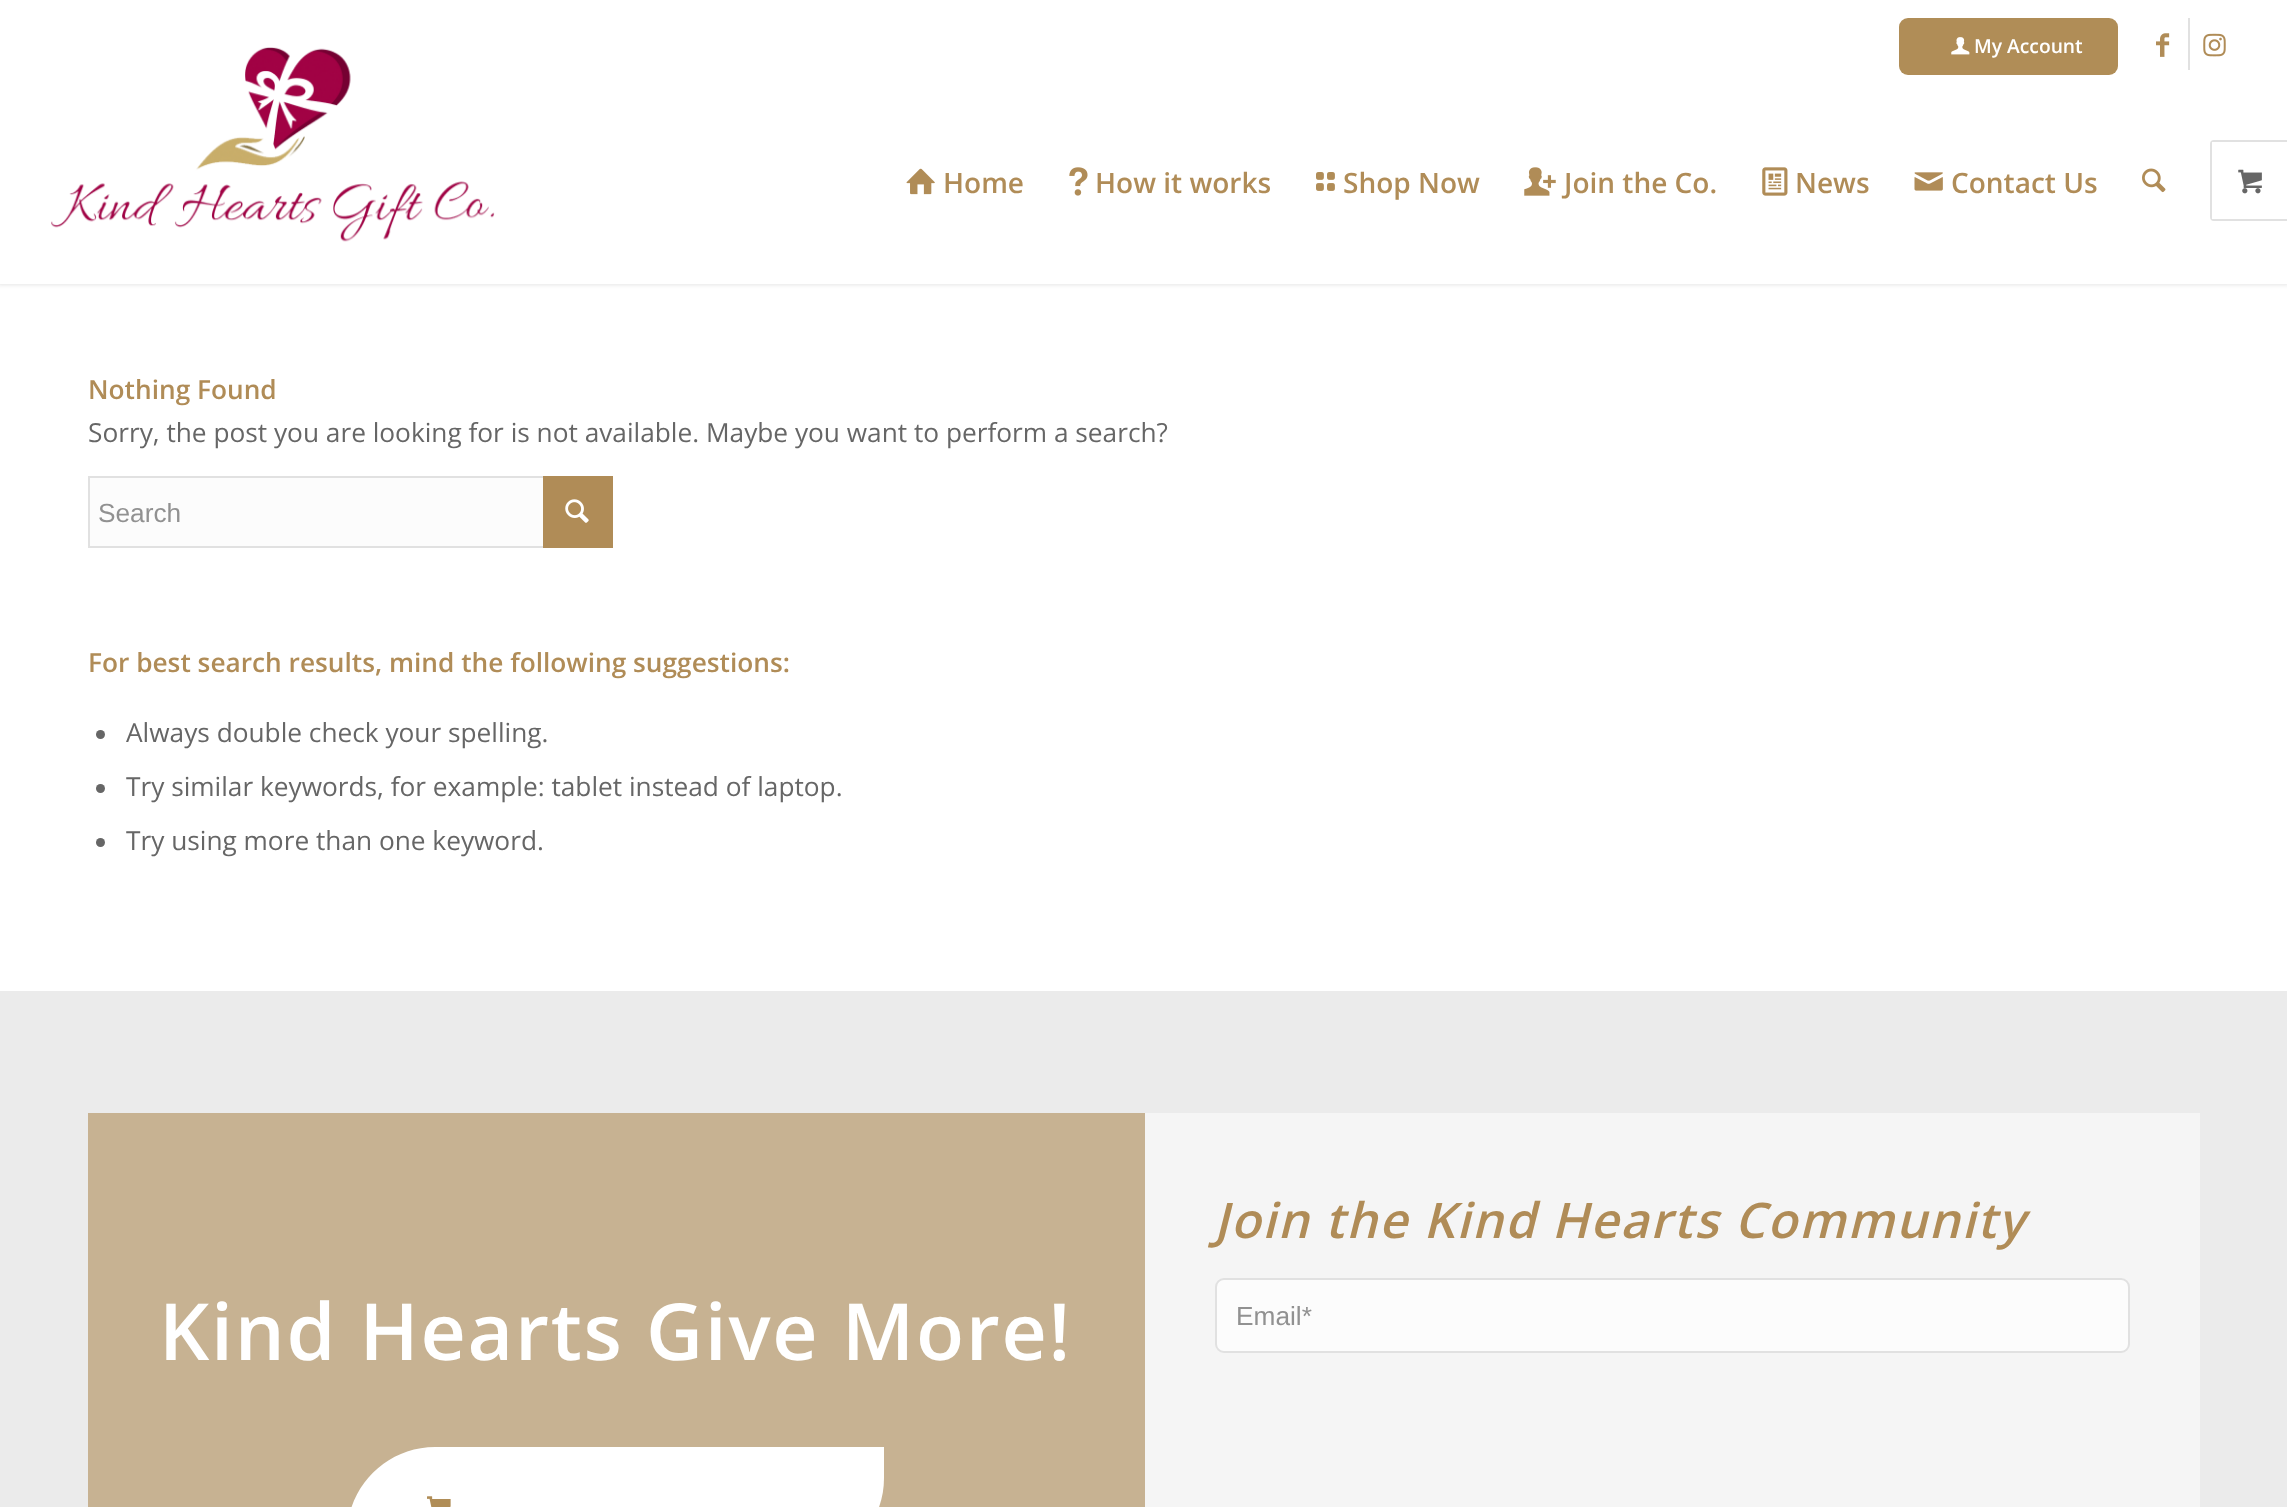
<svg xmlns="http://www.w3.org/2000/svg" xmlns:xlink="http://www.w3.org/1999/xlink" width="2287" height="1507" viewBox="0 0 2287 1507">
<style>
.cls-1{font:600 19.25px Open Sans;fill:#ffffff}
.cls-2{font:600 28px Open Sans;fill:#b08c57}
.cls-3{font:600 26.25px Open Sans;fill:#b08c57}
.cls-4{font:26.25px Open Sans;fill:#666666}
.cls-5{font:26.25px Liberation Sans;fill:#919191}
.cls-6{font:600 78.75px Open Sans;letter-spacing:1.75px;fill:#ffffff}
.cls-7{font:italic 600 49px Open Sans;letter-spacing:1.75px;fill:#b08c57}
</style>
<rect width="100%" height="100%" fill="#ffffff"/>
<rect fill="#000000" fill-opacity="0.1" filter="blur(2px)" x="-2" y="-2" width="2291" height="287"/>
<rect fill="#ffffff" x="0" y="0" width="2287" height="284"/>
<rect fill="#b08d57" x="1899" y="18" width="219" height="57" rx="9"/>
<image xlink:href="image0.png" x="1951" y="37" width="19" height="18"/>
<rect fill="#e1e1e1" x="2188" y="18" width="2" height="52"/>
<image xlink:href="image1.png" x="2156" y="33" width="14" height="24"/>
<image xlink:href="image2.png" x="2203" y="33" width="23" height="24"/>
<image xlink:href="image3.png" x="51" y="47" width="444" height="195"/>
<image xlink:href="image4.png" x="906" y="168" width="29" height="27"/>
<image xlink:href="image5.png" x="1069" y="167" width="19" height="29"/>
<image xlink:href="image6.png" x="1316" y="172" width="19" height="19"/>
<image xlink:href="image7.png" x="1524" y="167" width="32" height="29"/>
<image xlink:href="image8.png" x="1762" y="167" width="26" height="29"/>
<image xlink:href="image9.png" x="1914" y="172" width="29" height="19"/>
<image xlink:href="image10.png" x="2142" y="168" width="24" height="25"/>
<rect fill="none" stroke="#e1e1e1" stroke-width="2" x="2211" y="141" width="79" height="79" rx="3"/>
<rect fill="#ffffff" x="2212" y="142" width="2" height="77"/>
<image xlink:href="image11.png" x="2238" y="169" width="24" height="25"/>
<rect fill="#fcfcfc" x="90" y="478" width="453" height="68"/>
<rect fill="none" stroke="#e1e1e1" stroke-width="2" x="89" y="477" width="523" height="70"/>
<rect fill="#b08c57" x="543" y="476" width="70" height="72"/>
<image xlink:href="image12.png" x="565" y="499" width="24" height="24"/>
<circle fill="#666666" cx="100.5" cy="734.5" r="4.5"/>
<circle fill="#666666" cx="100.5" cy="788.5" r="4.5"/>
<circle fill="#666666" cx="100.5" cy="842.5" r="4.5"/>
<rect fill="#ebebeb" x="0" y="991" width="2287" height="516"/>
<rect fill="#c7b292" x="88" y="1113" width="1057" height="394"/>
<path fill="#ffffff" d="M435 1447H884V1478C884 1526.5 844.5 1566 796 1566H347V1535C347 1486.5 386.5 1447 435 1447Z"/>
<image xlink:href="image13.png" x="427" y="1496" width="24" height="11"/>
<rect fill="#f5f5f5" x="1145" y="1113" width="1055" height="394"/>
<rect fill="#fcfcfc" stroke="#e1e1e1" stroke-width="2" x="1216" y="1279" width="913" height="73" rx="8"/>
<text class="cls-1" x="1974" y="53">My Account</text>
<text class="cls-2" x="943" y="193">Home</text>
<text class="cls-2" x="1095" y="193">How it works</text>
<text class="cls-2" x="1343" y="193">Shop Now</text>
<text class="cls-2" x="1564" y="193">Join the Co.</text>
<text class="cls-2" x="1795" y="193">News</text>
<text class="cls-2" x="1951" y="193">Contact Us</text>
<text class="cls-3" x="88" y="399">Nothing Found</text>
<text class="cls-4" x="88" y="442">Sorry, the post you are looking for is not available. Maybe you want to perform a search?</text>
<text class="cls-5" x="98" y="522">Search</text>
<text class="cls-3" x="88" y="672">For best search results, mind the following suggestions:</text>
<text class="cls-4" x="126" y="742">Always double check your spelling.</text>
<text class="cls-4" x="126" y="796">Try similar keywords, for example: tablet instead of laptop.</text>
<text class="cls-4" x="126" y="850">Try using more than one keyword.</text>
<text class="cls-6" x="159" y="1360">Kind Hearts Give More!</text>
<text class="cls-7" x="1214" y="1238">Join the Kind Hearts Community</text>
<text class="cls-5" x="1236" y="1325">Email*</text>
</svg>
